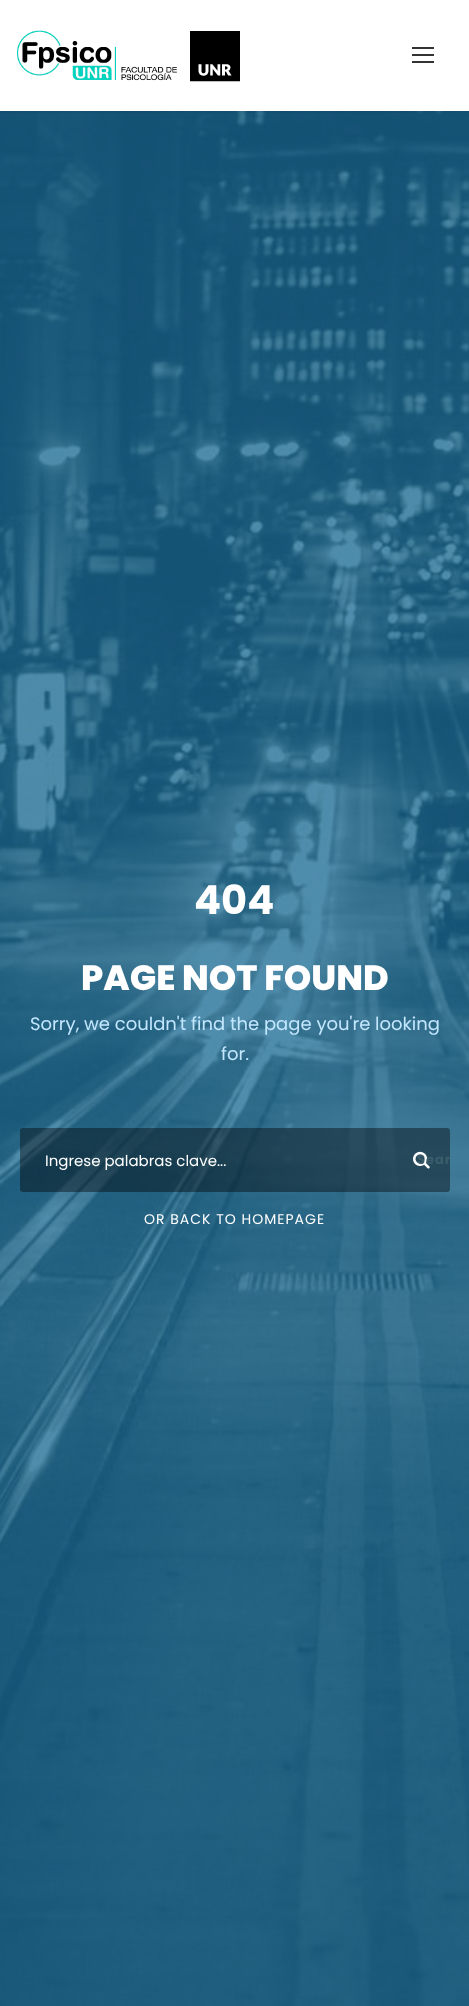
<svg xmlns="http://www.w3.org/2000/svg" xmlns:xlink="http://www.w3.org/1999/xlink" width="469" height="2006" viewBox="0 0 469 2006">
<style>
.cls-1{font:bold 40px Poppins;fill:#ffffff}
.cls-2{font:800 35px Poppins;fill:#ffffff}
.cls-3{font:18px Poppins;fill:#c3e7ff}
.cls-4{font:15px Poppins;fill:#ffffff}
.cls-5{font:bold 13px Poppins;letter-spacing:1px;fill:#3b5c6b}
.cls-6{font:14px Poppins;letter-spacing:1px;fill:#ffffff}
</style>
<defs>
<clipPath id="clip1"><rect x="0" y="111" width="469" height="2"/></clipPath>
</defs>
<rect width="100%" height="100%" fill="#ffffff"/>
<rect fill="#116693" x="0" y="111" width="469" height="1895"/>
<image xlink:href="image1.png" x="0" y="111" width="469" height="1895"/>
<g clip-path="url(#clip1)">
<rect fill="#000000" fill-opacity="0.1" filter="blur(1px)" x="0" y="1" width="469" height="111"/>
</g>
<image xlink:href="image0.png" x="17" y="30" width="223" height="52"/>
<rect fill="#333333" x="412" y="47" width="22" height="2"/>
<rect fill="#333333" x="412" y="54" width="22" height="2"/>
<rect fill="#333333" x="412" y="61" width="22" height="2"/>
<rect fill="#000000" fill-opacity="0.4" x="20" y="1128" width="430" height="64" rx="3"/>
<image xlink:href="image2.png" x="413" y="1151" width="17" height="18"/>
<text class="cls-1" x="194" y="914">404</text>
<text class="cls-2" x="81" y="990">PAGE NOT FOUND</text>
<text class="cls-3" x="30" y="1030">Sorry, we couldn't find the page you're looking</text>
<text class="cls-3" x="221" y="1060">for.</text>
<text class="cls-4" x="45" y="1166">Ingrese palabras clave...</text>
<text class="cls-5" x="417" y="1164">Sear</text>
<text class="cls-6" x="144" y="1224">OR BACK TO HOMEPAGE</text>
</svg>
